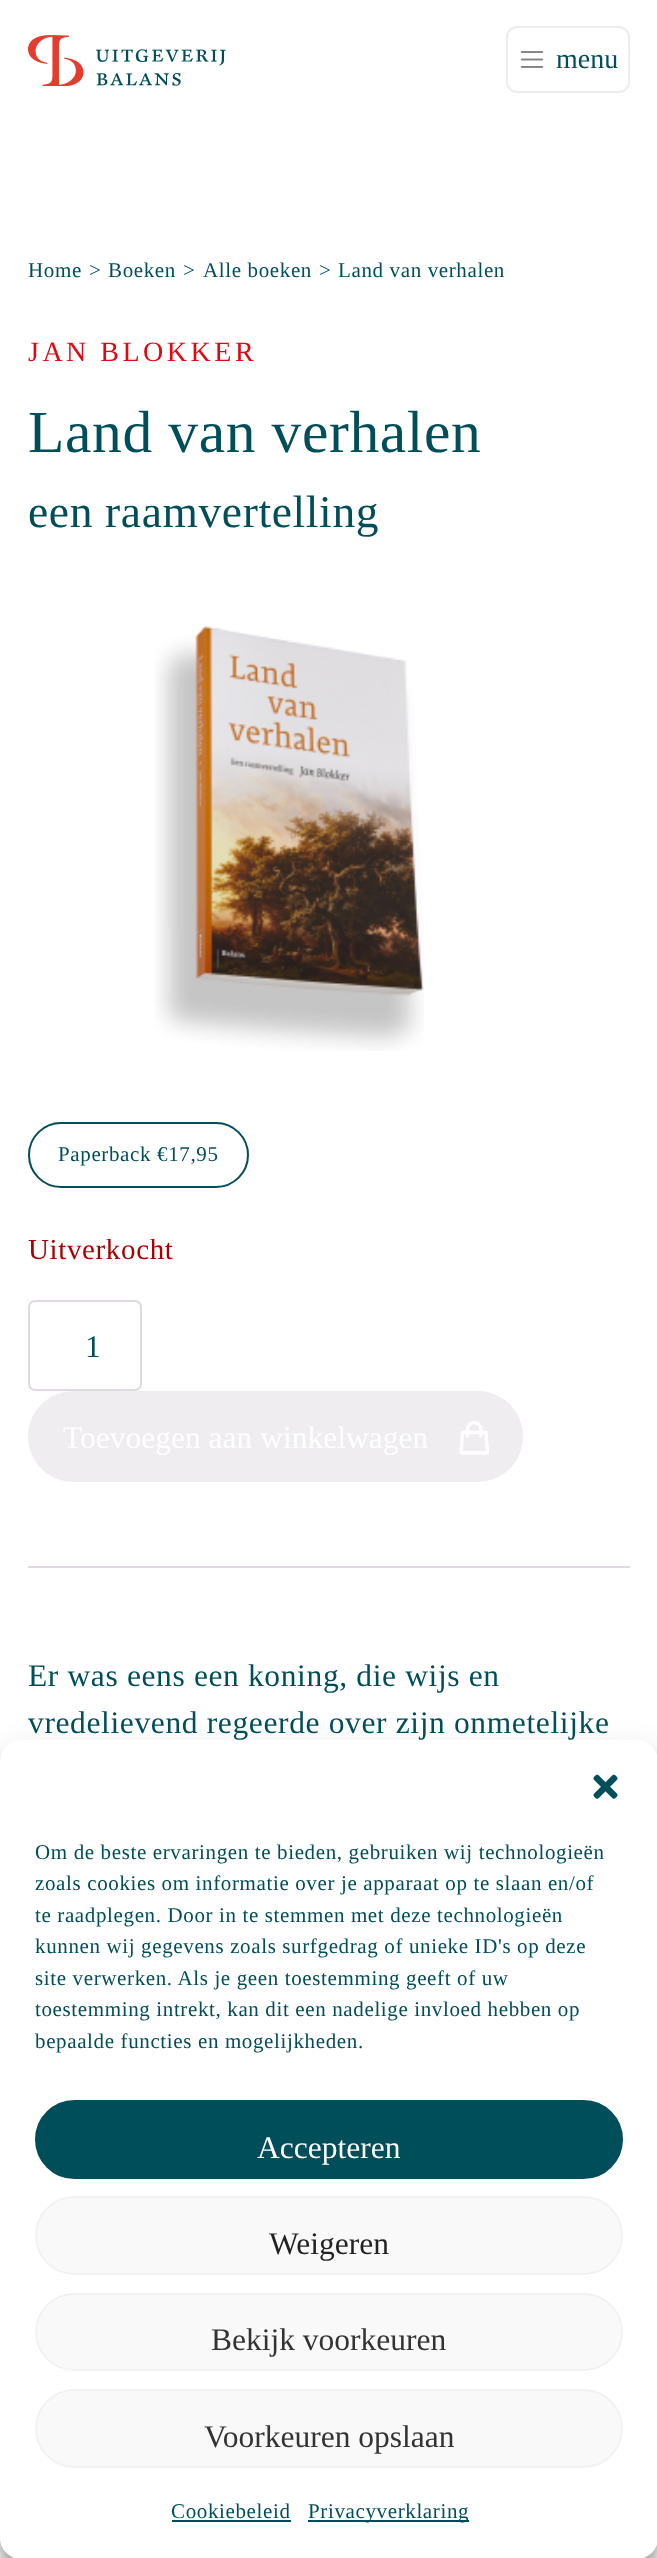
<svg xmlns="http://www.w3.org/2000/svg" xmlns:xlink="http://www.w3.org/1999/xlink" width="657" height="2558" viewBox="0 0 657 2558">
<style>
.cls-1{font:28px Liberation Serif;fill:#004e59}
.cls-2{font:21px Liberation Serif;letter-spacing:0.63px;fill:#004e59}
.cls-3{font:28px Liberation Serif;letter-spacing:3.5px;fill:#e30613}
.cls-4{font:59.5px Liberation Serif;letter-spacing:0.63px;fill:#004e59}
.cls-5{font:45.5px Liberation Serif;letter-spacing:0.63px;fill:#004e59}
.cls-6{font:29px Liberation Serif;letter-spacing:0.63px;fill:#aa0000}
.cls-7{font:31.5px Liberation Serif;fill:#004e59}
.cls-8{font:31.5px Liberation Serif;fill:#ffffff}
.cls-9{font:31.5px Liberation Serif;letter-spacing:0.63px;fill:#004e59}
.cls-10{font:31.5px Liberation Serif;fill:#222222}
.cls-11{font:31.5px Liberation Serif;fill:#333333}
</style>
<rect width="100%" height="100%" fill="#ffffff"/>
<image xlink:href="image0.png" x="28" y="35" width="198" height="51"/>
<rect fill="none" stroke="#ededed" stroke-width="2" x="507" y="27" width="122" height="65" rx="10"/>
<image xlink:href="image1.png" x="520" y="51" width="24" height="17"/>
<image xlink:href="image2.png" x="155" y="626" width="269" height="425"/>
<rect fill="#dfdae1" x="28" y="1566" width="602" height="2"/>
<rect fill="none" stroke="#004e59" stroke-width="2" x="29" y="1123" width="219" height="64" rx="32"/>
<rect fill="none" stroke="#dfdae1" stroke-width="2" x="29" y="1301" width="112" height="89" rx="6"/>
<rect fill="#efedf0" x="28" y="1391" width="495" height="91" rx="45.5"/>
<path fill="none" stroke="#ffffff" stroke-width="3.4" stroke-linecap="round" stroke-linejoin="round" d="M481 1436V1429.5C481 1425.5 478 1422.5 474 1422.5C470.5 1422.5 467.5 1425.5 467.5 1429.5V1436M462.5 1432.5H486L487.5 1453H461Z"/>
<rect fill="#000000" fill-opacity="0.23" filter="blur(5px)" x="0" y="1750" width="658" height="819" rx="21"/>
<rect fill="#000000" fill-opacity="0.19" filter="blur(17.5px)" x="0" y="1757" width="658" height="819" rx="21"/>
<rect fill="#ffffff" x="0" y="1740" width="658" height="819" rx="21"/>
<image xlink:href="image3.png" x="593" y="1774" width="25" height="25"/>
<rect fill="#004e59" stroke="#004e59" stroke-width="2" x="36" y="2101" width="586" height="77" rx="38.5"/>
<rect fill="#f9f9f9" stroke="#f2f2f2" stroke-width="2" x="36" y="2197" width="586" height="77" rx="38.5"/>
<rect fill="#f9f9f9" stroke="#f2f2f2" stroke-width="2" x="36" y="2294" width="586" height="76" rx="38"/>
<rect fill="#f9f9f9" stroke="#f2f2f2" stroke-width="2" x="36" y="2390" width="586" height="77" rx="38.5"/>
<rect fill="#004e59" x="172" y="2520" width="119" height="2"/>
<rect fill="#004e59" x="308" y="2520" width="161" height="2"/>
<text class="cls-1" x="556" y="68">menu</text>
<text class="cls-2" x="28" y="277">Home</text>
<text class="cls-2" x="89" y="277">&gt;</text>
<text class="cls-2" x="108" y="277">Boeken</text>
<text class="cls-2" x="183" y="277">&gt;</text>
<text class="cls-2" x="203" y="277">Alle boeken</text>
<text class="cls-2" x="319" y="277">&gt;</text>
<text class="cls-2" x="338" y="277">Land van verhalen</text>
<text class="cls-3" x="28" y="361">JAN BLOKKER</text>
<text class="cls-4" x="28" y="452">Land van verhalen</text>
<text class="cls-5" x="28" y="527">een raamvertelling</text>
<text class="cls-2" x="58" y="1161">Paperback €17,95</text>
<text class="cls-6" x="28" y="1259">Uitverkocht</text>
<text class="cls-7" x="85" y="1357">1</text>
<text class="cls-8" x="63" y="1448">Toevoegen aan winkelwagen</text>
<text class="cls-9"><tspan x="28" y="1686">Er was eens een koning, die wijs en</tspan><tspan x="28" y="1733">vredelievend regeerde over zijn onmetelijke</tspan></text>
<text class="cls-2"><tspan x="35" y="1859">Om de beste ervaringen te bieden, gebruiken wij technologieën</tspan><tspan x="35" y="1890">zoals cookies om informatie over je apparaat op te slaan en/of</tspan><tspan x="35" y="1922">te raadplegen. Door in te stemmen met deze technologieën</tspan><tspan x="35" y="1953">kunnen wij gegevens zoals surfgedrag of unieke ID's op deze</tspan><tspan x="35" y="1985">site verwerken. Als je geen toestemming geeft of uw</tspan><tspan x="35" y="2016">toestemming intrekt, kan dit een nadelige invloed hebben op</tspan><tspan x="35" y="2048">bepaalde functies en mogelijkheden.</tspan></text>
<text class="cls-8" x="257" y="2158">Accepteren</text>
<text class="cls-10" x="269" y="2254">Weigeren</text>
<text class="cls-11" x="211" y="2350">Bekijk voorkeuren</text>
<text class="cls-11" x="204" y="2447">Voorkeuren opslaan</text>
<text class="cls-2" x="171" y="2518">Cookiebeleid</text>
<text class="cls-2" x="308" y="2518">Privacyverklaring</text>
</svg>
